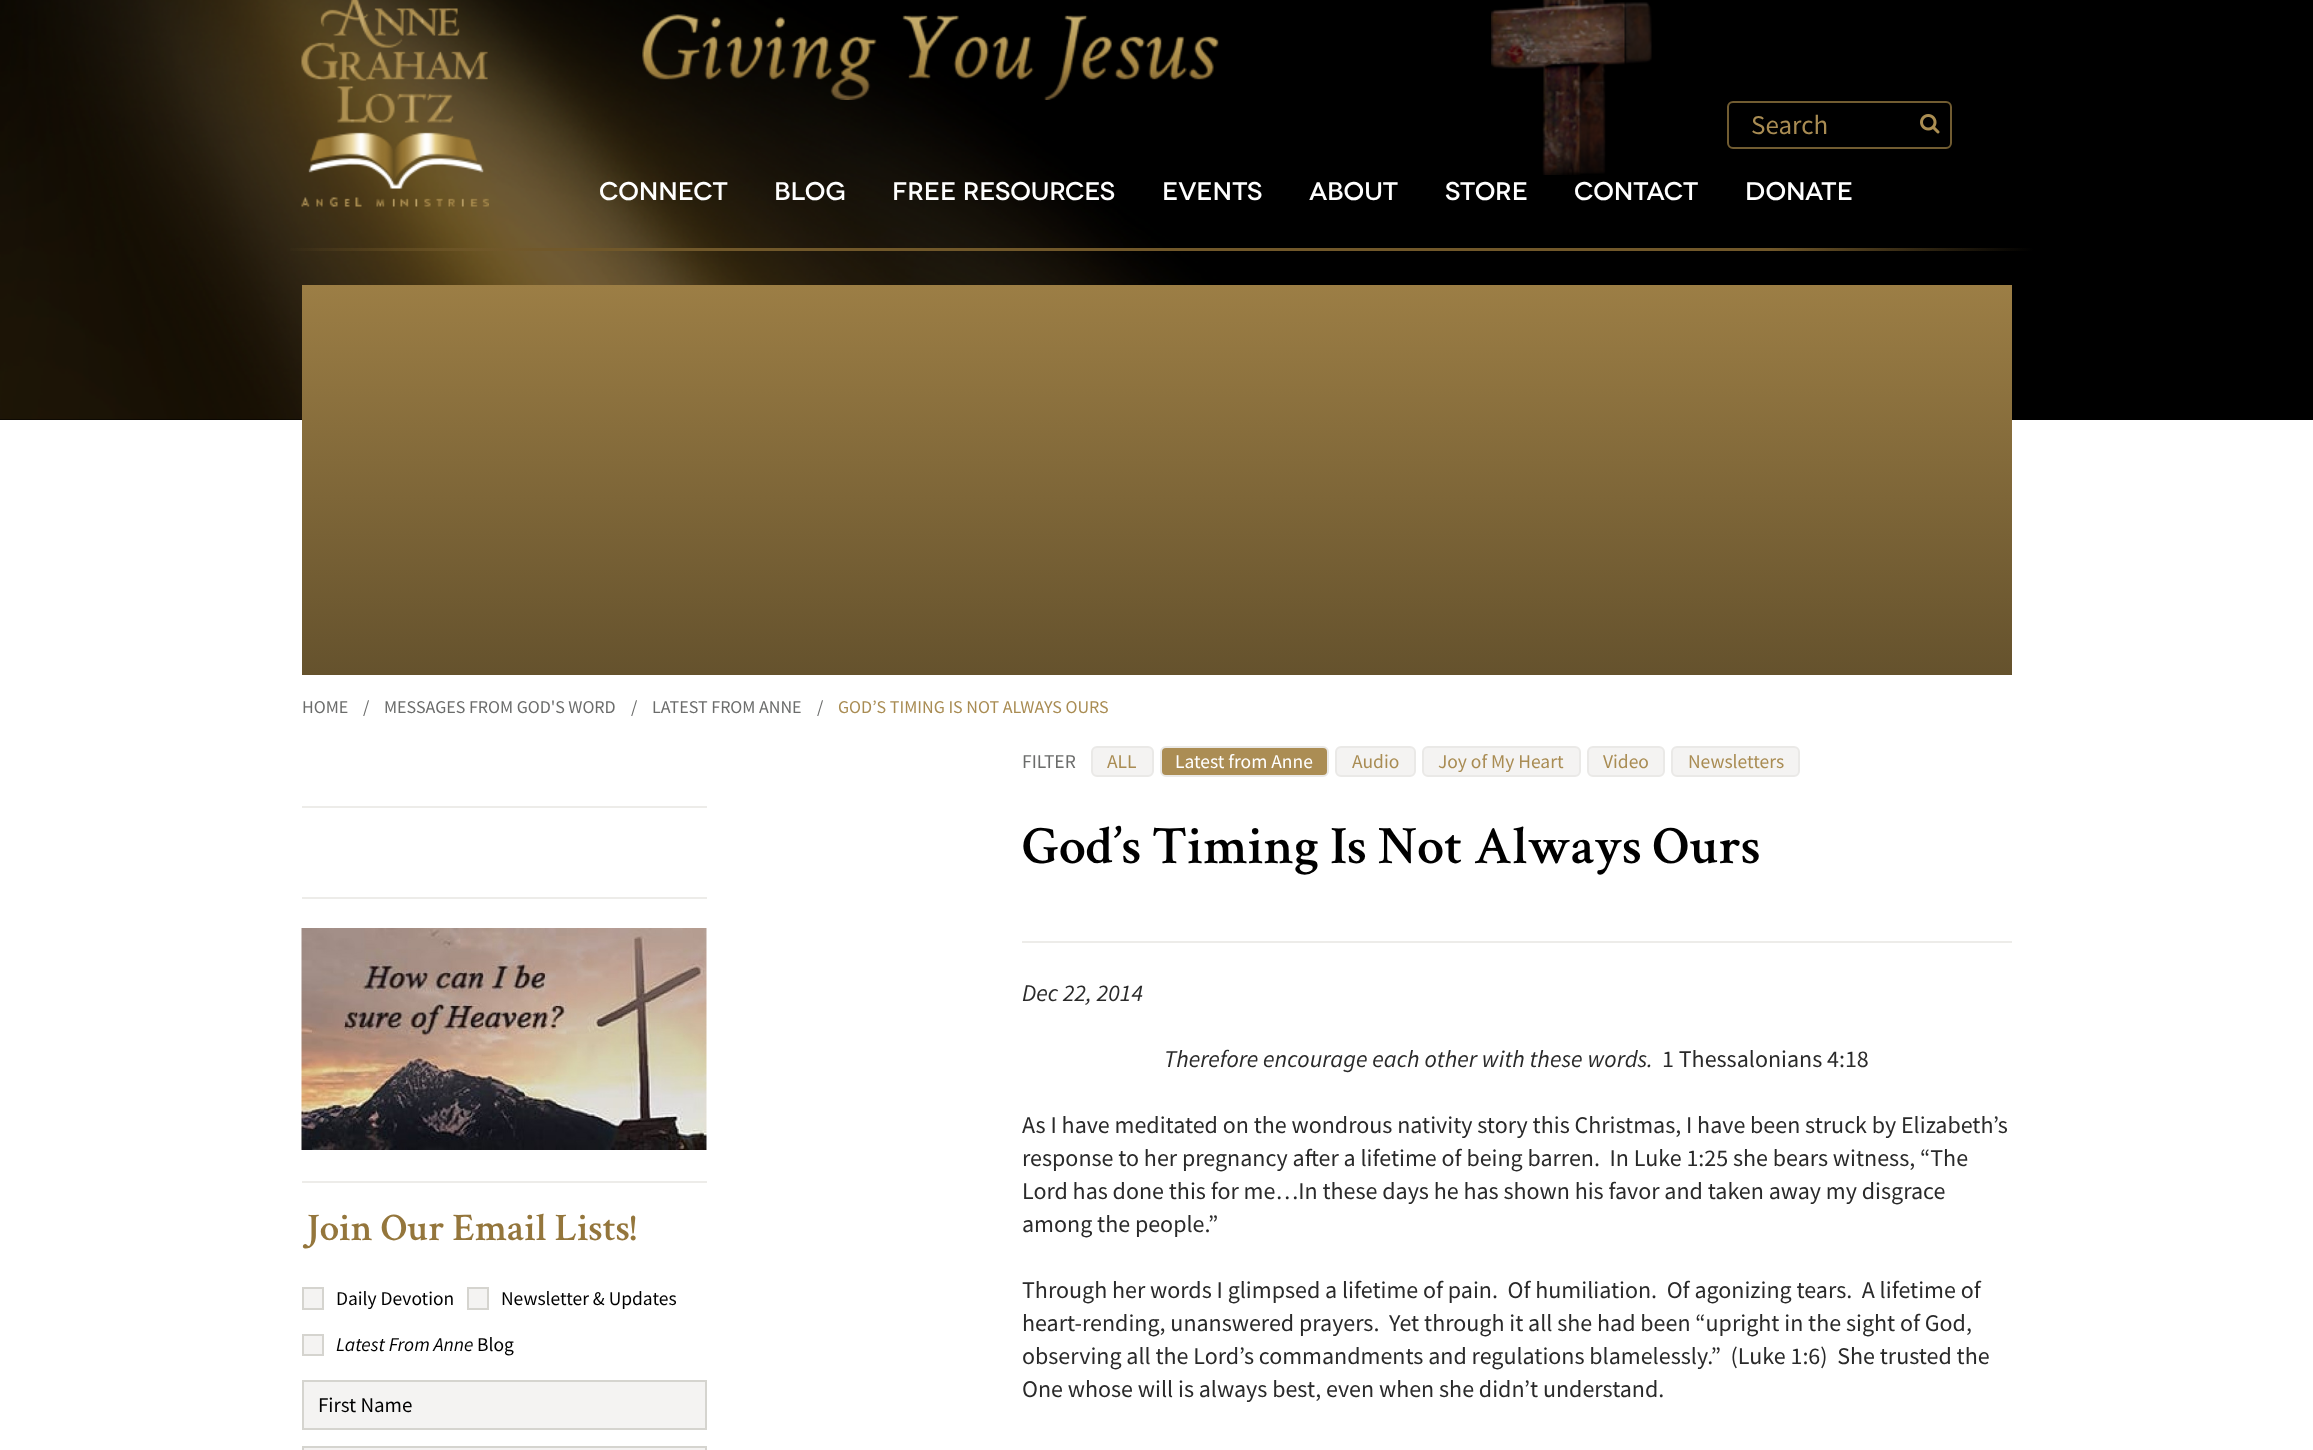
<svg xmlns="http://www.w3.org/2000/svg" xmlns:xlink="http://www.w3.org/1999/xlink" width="2313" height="1450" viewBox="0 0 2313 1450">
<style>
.cls-1{font:27px Source Sans Pro;fill:#a98c53}
.cls-2{font:500 25.5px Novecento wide;fill:#ffffff}
.cls-3{font:18px Source Sans Pro;fill:#6b6c6b}
.cls-4{font:18px Source Sans Pro;fill:#a98c53}
.cls-5{font:600 39px Crimson Text;fill:#94763c}
.cls-6{font:19.5px Source Sans Pro;fill:#000000}
.cls-7{font:italic 19.5px Source Sans Pro;fill:#000000}
.cls-8{font:21px Source Sans Pro;fill:#000000}
.cls-9{font:19.5px Source Sans Pro;fill:#6b6c6b}
.cls-10{font:19.5px Source Sans Pro;fill:#a98c53}
.cls-11{font:19.5px Source Sans Pro;fill:#ffffff}
.cls-12{font:600 54px Crimson Text;fill:#000000}
.cls-13{font:italic 24px Source Sans Pro;fill:#2a2a2a}
.cls-14{font:24px Source Sans Pro;fill:#2a2a2a}
</style>
<defs>
<linearGradient id="g1" gradientUnits="userSpaceOnUse" x1="279" y1="249" x2="2034" y2="249"><stop offset="0" stop-color="#71582a" stop-opacity="0"/><stop offset="0.15" stop-color="#71582a"/><stop offset="0.85" stop-color="#71582a"/><stop offset="1" stop-color="#71582a" stop-opacity="0"/></linearGradient>
<linearGradient id="g2" gradientUnits="userSpaceOnUse" x1="1157" y1="285" x2="1157" y2="675"><stop offset="0" stop-color="#9c7e45"/><stop offset="1" stop-color="#65522d"/></linearGradient>
</defs>
<rect width="100%" height="100%" fill="#ffffff"/>
<rect fill="#000000" x="0" y="0" width="2313" height="420"/>
<image xlink:href="image0.png" x="0" y="0" width="1336" height="420"/>
<image xlink:href="image1.png" x="301" y="0" width="188" height="207"/>
<image xlink:href="image2.png" x="1491" y="0" width="161" height="175"/>
<image xlink:href="image3.png" x="642" y="14" width="577" height="86"/>
<rect fill="none" stroke="#715c31" stroke-width="2" x="1728" y="102" width="223" height="46" rx="5"/>
<image xlink:href="image4.png" x="1920" y="114" width="20" height="20"/>
<rect fill="url(#g1)" x="290" y="248" width="1744" height="3"/>
<rect fill="url(#g2)" x="302" y="285" width="1710" height="390"/>
<rect fill="#edece9" x="302" y="806" width="405" height="2"/>
<rect fill="#edece9" x="302" y="897" width="405" height="2"/>
<rect fill="#edece9" x="302" y="1181" width="405" height="2"/>
<image xlink:href="image5.png" x="301" y="928" width="406" height="222"/>
<rect fill="#f4f3f2" stroke="#d5d4cf" stroke-width="2" x="303" y="1288" width="20" height="21"/>
<rect fill="#f4f3f2" stroke="#d5d4cf" stroke-width="2" x="468" y="1288" width="20" height="21"/>
<rect fill="#f4f3f2" stroke="#d5d4cf" stroke-width="2" x="303" y="1335" width="20" height="20"/>
<rect fill="#f4f3f2" stroke="#d5d4cf" stroke-width="2" x="303" y="1381" width="403" height="48"/>
<rect fill="#f4f3f2" stroke="#d5d4cf" stroke-width="2" x="303" y="1447" width="403" height="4"/>
<rect fill="#f4f3f2" stroke="#eae9e7" stroke-width="2" x="1092" y="747" width="61" height="29" rx="5"/>
<rect fill="#ab8d54" stroke="#eae9e7" stroke-width="2" x="1161" y="747" width="167" height="29" rx="5"/>
<rect fill="#f4f3f2" stroke="#eae9e7" stroke-width="2" x="1336" y="747" width="79" height="29" rx="5"/>
<rect fill="#f4f3f2" stroke="#eae9e7" stroke-width="2" x="1423" y="747" width="157" height="29" rx="5"/>
<rect fill="#f4f3f2" stroke="#eae9e7" stroke-width="2" x="1588" y="747" width="76" height="29" rx="5"/>
<rect fill="#f4f3f2" stroke="#eae9e7" stroke-width="2" x="1672" y="747" width="127" height="29" rx="5"/>
<rect fill="#edece9" x="1022" y="941" width="990" height="2"/>
<text class="cls-1" x="1751" y="134">Search</text>
<text class="cls-2" x="599" y="200">CONNECT</text>
<text class="cls-2" x="774" y="200">BLOG</text>
<text class="cls-2" x="892" y="200">FREE RESOURCES</text>
<text class="cls-2" x="1162" y="200">EVENTS</text>
<text class="cls-2" x="1309" y="200">ABOUT</text>
<text class="cls-2" x="1445" y="200">STORE</text>
<text class="cls-2" x="1574" y="200">CONTACT</text>
<text class="cls-2" x="1745" y="200">DONATE</text>
<text class="cls-3" x="302" y="713">HOME</text>
<text class="cls-3" x="363" y="713">/</text>
<text class="cls-3" x="384" y="713">MESSAGES FROM GOD'S WORD</text>
<text class="cls-3" x="631" y="713">/</text>
<text class="cls-3" x="652" y="713">LATEST FROM ANNE</text>
<text class="cls-3" x="817" y="713">/</text>
<text class="cls-4" x="838" y="713">GOD’S TIMING IS NOT ALWAYS OURS</text>
<text class="cls-5" x="302" y="1240">Join Our Email Lists!</text>
<text class="cls-6" x="336" y="1305">Daily Devotion</text>
<text class="cls-6" x="501" y="1305">Newsletter &amp; Updates</text>
<text class="cls-7" x="336" y="1351">Latest From Anne</text>
<text class="cls-6" x="477" y="1351">Blog</text>
<text class="cls-8" x="318" y="1412">First Name</text>
<text class="cls-9" x="1022" y="768">FILTER</text>
<text class="cls-10" x="1107" y="768">ALL</text>
<text class="cls-11" x="1175" y="768">Latest from Anne</text>
<text class="cls-10" x="1352" y="768">Audio</text>
<text class="cls-10" x="1438" y="768">Joy of My Heart</text>
<text class="cls-10" x="1603" y="768">Video</text>
<text class="cls-10" x="1688" y="768">Newsletters</text>
<text class="cls-12" x="1022" y="863">God’s Timing Is Not Always Ours</text>
<text class="cls-13" x="1022" y="1001">Dec 22, 2014</text>
<text class="cls-13" x="1164" y="1067">Therefore encourage each other with these words.</text>
<text class="cls-14" x="1662" y="1067">1 Thessalonians 4:18</text>
<text class="cls-14" xml:space="preserve"><tspan x="1022" y="1133">As I have meditated on the wondrous nativity story this Christmas, I have been struck by Elizabeth’s</tspan><tspan x="1022" y="1166">response to her pregnancy after a lifetime of being barren.  In Luke 1:25 she bears witness, “The</tspan><tspan x="1022" y="1199">Lord has done this for me…In these days he has shown his favor and taken away my disgrace</tspan><tspan x="1022" y="1232">among the people.”</tspan></text>
<text class="cls-14" xml:space="preserve"><tspan x="1022" y="1298">Through her words I glimpsed a lifetime of pain.  Of humiliation.  Of agonizing tears.  A lifetime of</tspan><tspan x="1022" y="1331">heart-rending, unanswered prayers.  Yet through it all she had been “upright in the sight of God,</tspan><tspan x="1022" y="1364">observing all the Lord’s commandments and regulations blamelessly.”  (Luke 1:6)  She trusted the</tspan><tspan x="1022" y="1397">One whose will is always best, even when she didn’t understand.</tspan></text>
</svg>
